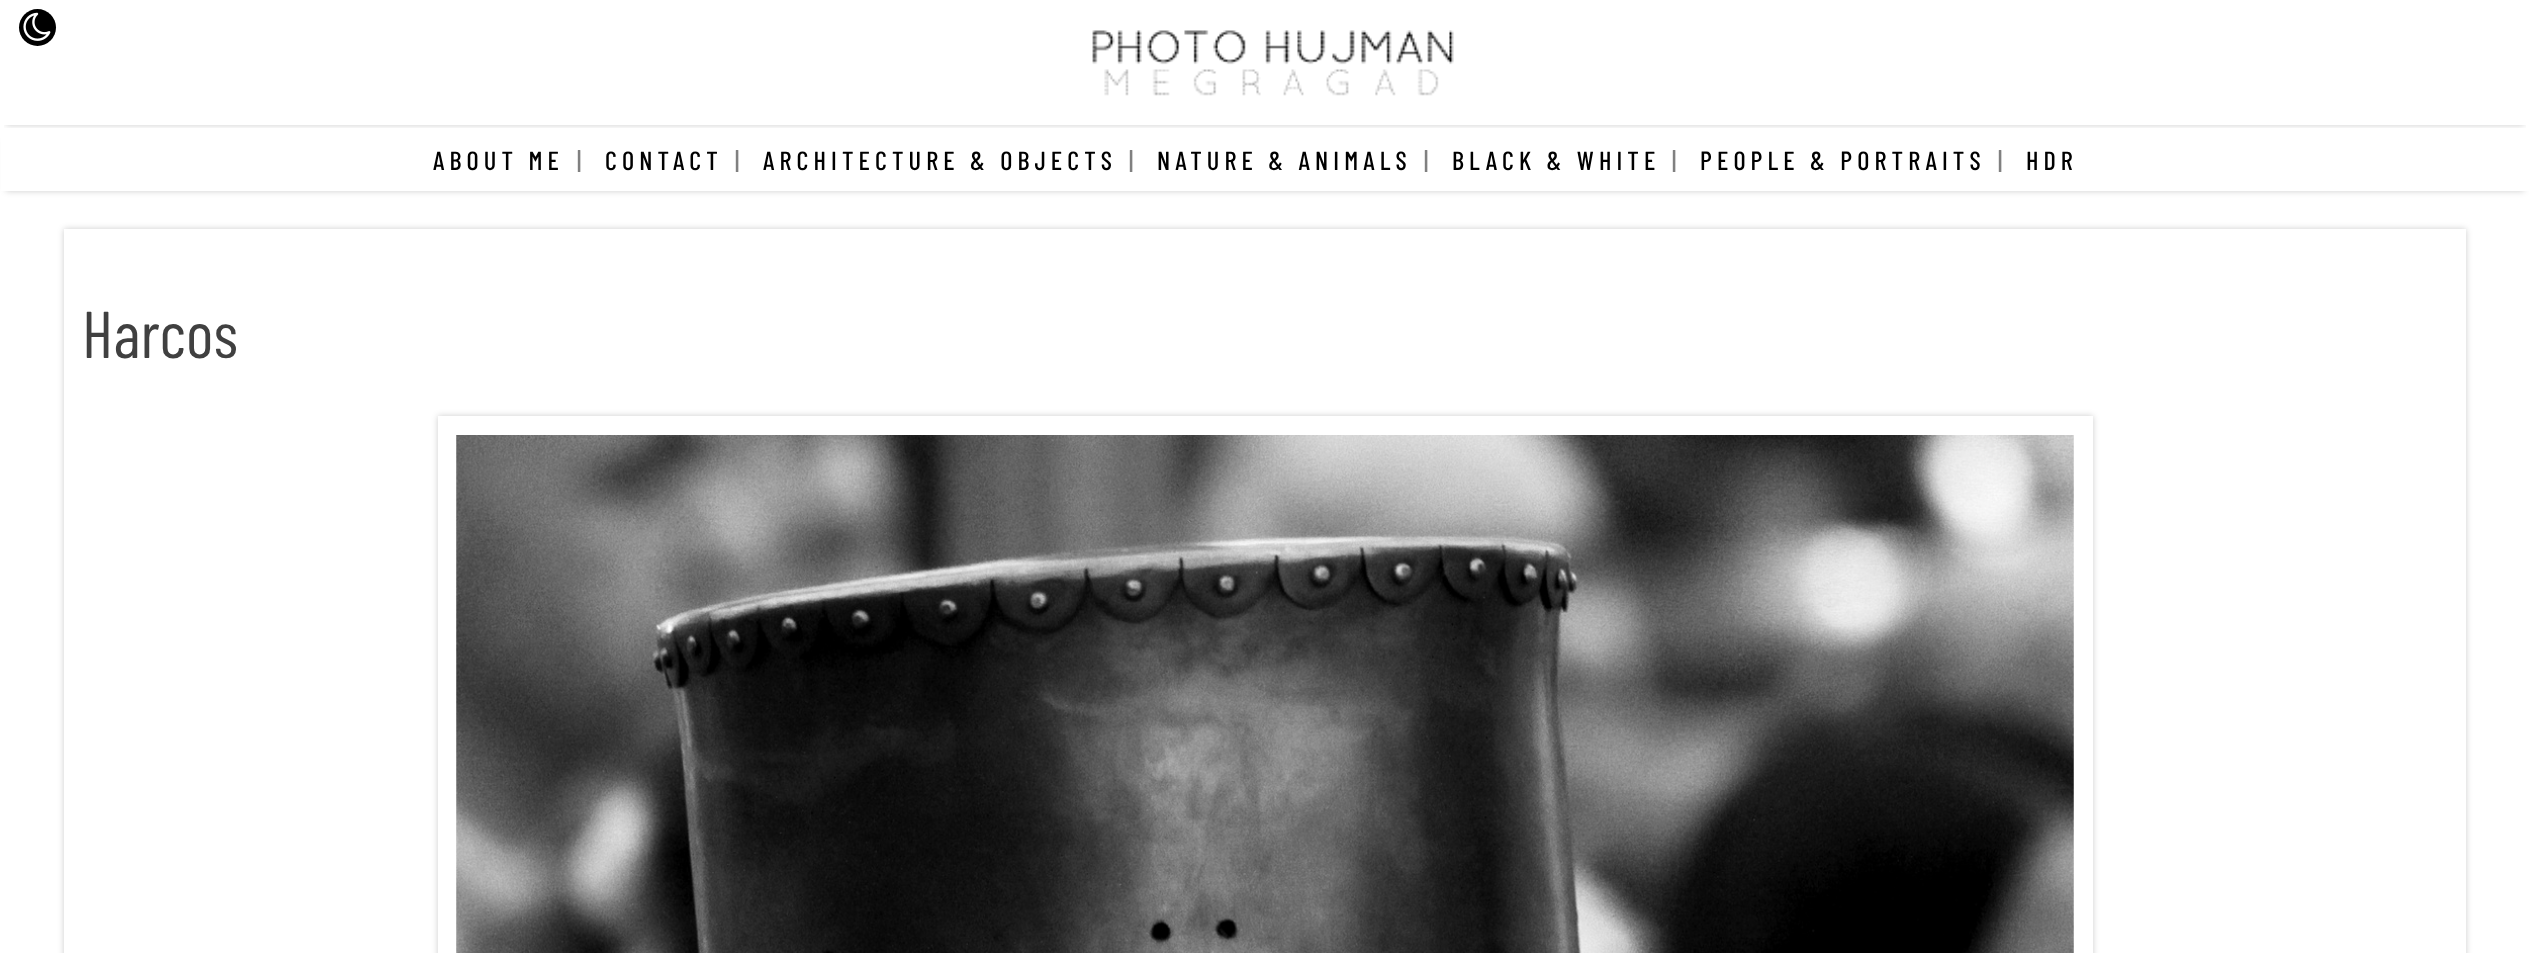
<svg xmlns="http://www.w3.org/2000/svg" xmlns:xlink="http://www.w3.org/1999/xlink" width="2529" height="953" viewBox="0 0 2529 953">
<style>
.cls-1{font:500 26.25px Barlow Condensed;letter-spacing:5.1px;fill:#000000}
.cls-2{font:500 26.25px Barlow Condensed;letter-spacing:5.1px;fill:#808080}
.cls-3{font:66px Barlow Condensed;fill:#404040}
</style>
<defs>
<clipPath id="clip1"><rect x="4" y="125" width="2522" height="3"/></clipPath>
<clipPath id="clip2"><path d="M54 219H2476V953H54ZM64 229H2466V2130H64Z" clip-rule="evenodd"/></clipPath>
<clipPath id="clip3"><path d="M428 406H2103V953H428ZM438 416H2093V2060H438Z" clip-rule="evenodd"/></clipPath>
</defs>
<rect width="100%" height="100%" fill="#ffffff"/>
<g clip-path="url(#clip1)">
<rect fill="#000000" fill-opacity="0.2" filter="blur(3px)" x="6" y="13" width="2518" height="112"/>
</g>
<image xlink:href="image0.png" x="1092" y="30" width="362" height="66"/>
<circle fill="#000000" cx="37.5" cy="27.5" r="18.5"/>
<image xlink:href="image1.png" x="23" y="12" width="28" height="29"/>
<rect fill="#000000" fill-opacity="0.2" filter="blur(3px)" x="6" y="140" width="2518" height="51"/>
<rect fill="#ffffff" x="1" y="128" width="2528" height="63"/>
<g clip-path="url(#clip2)">
<rect fill="#000000" fill-opacity="0.2" filter="blur(3px)" x="64" y="229" width="2402" height="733"/>
</g>
<g clip-path="url(#clip3)">
<rect fill="#000000" fill-opacity="0.2" filter="blur(3px)" x="438" y="416" width="1655" height="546"/>
</g>
<image xlink:href="image2.png" x="456" y="435" width="1618" height="518"/>
<text class="cls-1" x="433" y="170">ABOUT ME</text>
<text class="cls-2" x="577" y="170">|</text>
<text class="cls-1" x="605" y="170">CONTACT</text>
<text class="cls-2" x="735" y="170">|</text>
<text class="cls-1" x="763" y="170">ARCHITECTURE &amp; OBJECTS</text>
<text class="cls-2" x="1129" y="170">|</text>
<text class="cls-1" x="1157" y="170">NATURE &amp; ANIMALS</text>
<text class="cls-2" x="1424" y="170">|</text>
<text class="cls-1" x="1452" y="170">BLACK &amp; WHITE</text>
<text class="cls-2" x="1672" y="170">|</text>
<text class="cls-1" x="1700" y="170">PEOPLE &amp; PORTRAITS</text>
<text class="cls-2" x="1998" y="170">|</text>
<text class="cls-1" x="2026" y="170">HDR</text>
<text class="cls-3" x="82" y="358">Harcos</text>
</svg>
